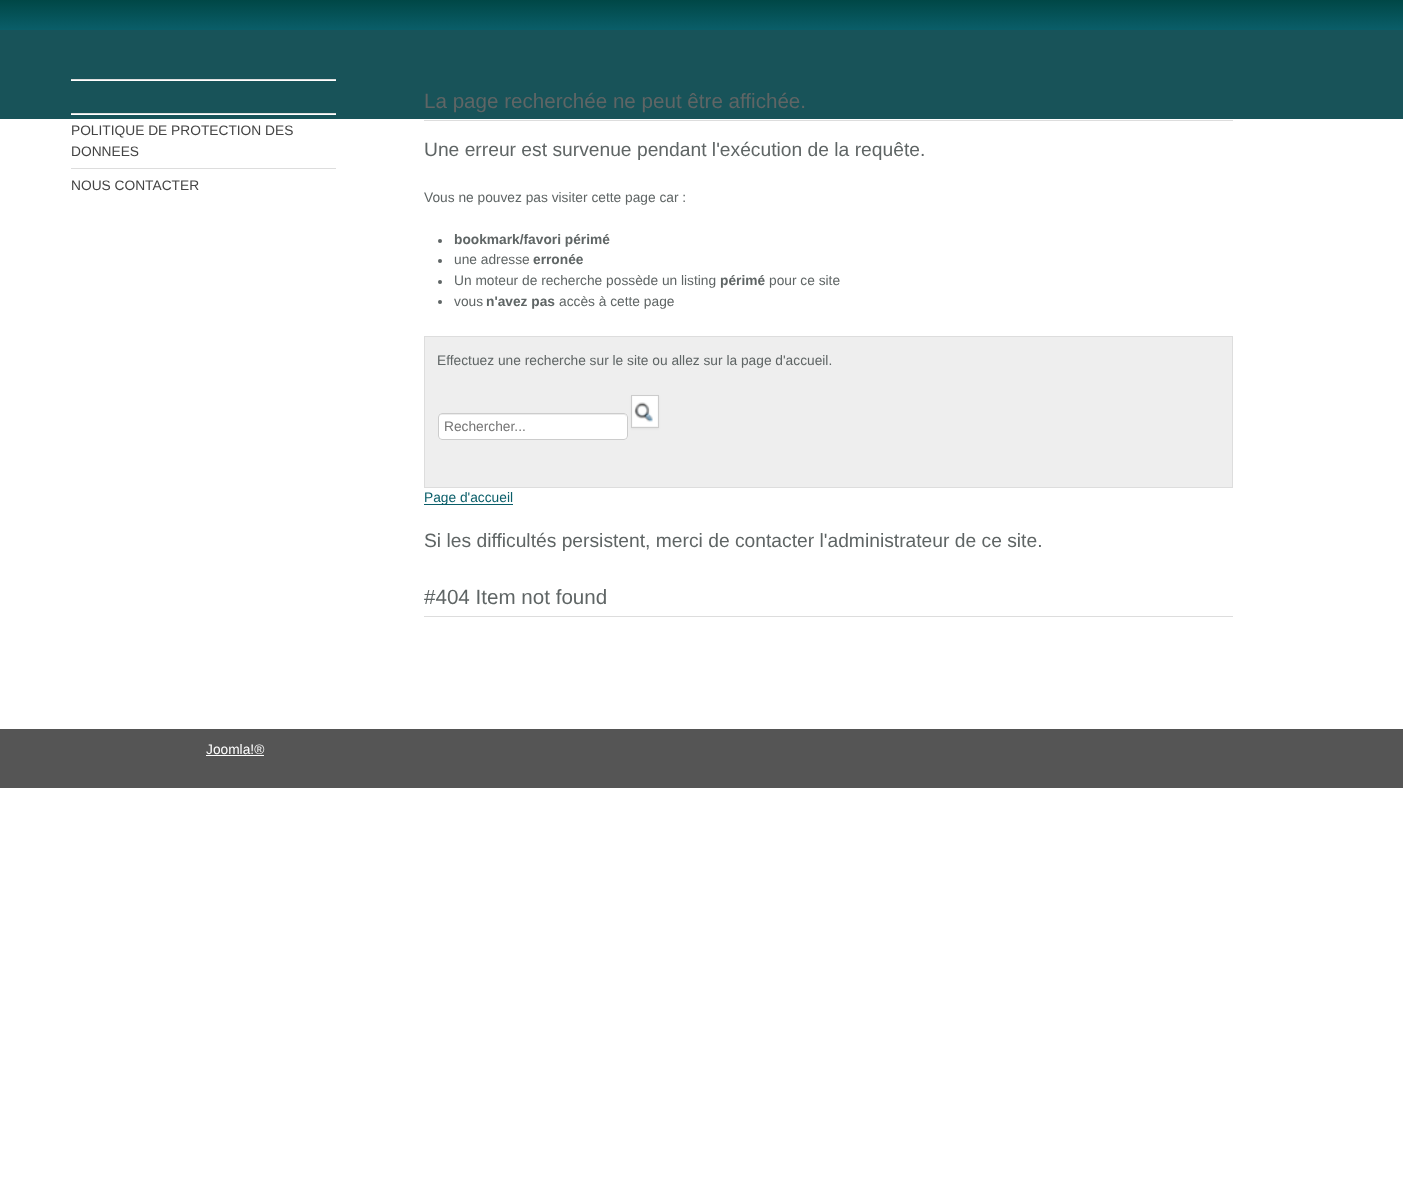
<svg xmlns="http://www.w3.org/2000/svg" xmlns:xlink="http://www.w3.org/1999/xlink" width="1403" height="1184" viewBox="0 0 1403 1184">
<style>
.cls-1{font:13.75px Liberation Sans;fill:#444444}
.cls-2{font:20.6px Liberation Sans;fill:#5f6565}
.cls-3{font:19.25px Liberation Sans;fill:#5f6565}
.cls-4{font:13.75px Liberation Sans;fill:#5f6565}
.cls-5{font:bold 13.75px Liberation Sans;fill:#5f6565}
.cls-6{font:13.75px Liberation Sans;fill:#757575}
.cls-7{font:13.75px Liberation Sans;fill:#0a5e69}
.cls-8{font:13.75px Liberation Sans;fill:#ffffff}
</style>
<defs>
<linearGradient id="g1" gradientUnits="userSpaceOnUse" x1="701" y1="0" x2="701" y2="119"><stop offset="0" stop-color="#004746"/><stop offset="0.25" stop-color="#0a5e69"/><stop offset="0.25" stop-color="#185359"/></linearGradient>
</defs>
<rect width="100%" height="100%" fill="#ffffff"/>
<rect fill="url(#g1)" x="0" y="0" width="1403" height="119"/>
<path fill="#ffffff" d="M71 46V81H336V80H71Z"/>
<rect fill="#dddddd" x="71" y="79" width="265" height="1"/>
<path fill="#ffffff" d="M71 81V115H336V114H71Z"/>
<rect fill="#dddddd" x="71" y="113" width="265" height="1"/>
<rect fill="#dddddd" x="71" y="168" width="265" height="1"/>
<rect fill="#dddddd" x="424" y="120" width="809" height="1"/>
<circle fill="#5f6565" cx="440" cy="241" r="2"/>
<circle fill="#5f6565" cx="440" cy="261" r="2"/>
<circle fill="#5f6565" cx="440" cy="282" r="2"/>
<circle fill="#5f6565" cx="440" cy="302" r="2"/>
<rect fill="#eeeeee" stroke="#dddddd" x="424.5" y="336.5" width="808" height="151"/>
<rect fill="#ffffff" x="438" y="413" width="190" height="27" rx="4"/>
<path fill="#ececec" d="M441 415H624C625 415 626 416 626 418C626 416 626 414 624 414H441C439 414 439 416 439 418C439 416 440 415 441 415Z"/>
<rect fill="none" stroke="#cccccc" x="438.5" y="413.5" width="189" height="26" rx="3.5"/>
<rect fill="#000000" fill-opacity="0.05" filter="blur(1px)" x="631" y="396" width="28" height="33"/>
<rect fill="#f5f5f5" stroke="#cccccc" x="631.5" y="395.5" width="27" height="32"/>
<image xlink:href="image0.png" x="632" y="396" width="26" height="30"/>
<rect fill="#0a5e69" x="424" y="504" width="89" height="1"/>
<rect fill="#dddddd" x="424" y="616" width="809" height="1"/>
<rect fill="#555555" x="0" y="729" width="1403" height="59"/>
<rect fill="#ffffff" x="206" y="755" width="58" height="1"/>
<text class="cls-1"><tspan x="71" y="135">POLITIQUE DE PROTECTION DES</tspan><tspan x="71" y="156">DONNEES</tspan></text>
<text class="cls-1" x="71" y="190">NOUS CONTACTER</text>
<text class="cls-2" x="424" y="108">La page recherchée ne peut être affichée.</text>
<text class="cls-3" x="424" y="156">Une erreur est survenue pendant l'exécution de la requête.</text>
<text class="cls-4" x="424" y="202">Vous ne pouvez pas visiter cette page car :</text>
<text class="cls-5" x="454" y="244">bookmark/favori périmé</text>
<text class="cls-4" x="454" y="264">une adresse</text>
<text class="cls-5" x="533" y="264">erronée</text>
<text class="cls-4" x="454" y="285">Un moteur de recherche possède un listing</text>
<text class="cls-5" x="720" y="285">périmé</text>
<text class="cls-4" x="769" y="285">pour ce site</text>
<text class="cls-4" x="454" y="306">vous</text>
<text class="cls-5" x="486" y="306">n'avez pas</text>
<text class="cls-4" x="559" y="306">accès à cette page</text>
<text class="cls-4" x="437" y="365">Effectuez une recherche sur le site ou allez sur la page d'accueil.</text>
<text class="cls-6" x="444" y="431">Rechercher...</text>
<text class="cls-7" x="424" y="502">Page d'accueil</text>
<text class="cls-3" x="424" y="547">Si les difficultés persistent, merci de contacter l'administrateur de ce site.</text>
<text class="cls-2" x="424" y="604">#404 Item not found</text>
<text class="cls-8" x="206" y="754">Joomla!®</text>
</svg>
